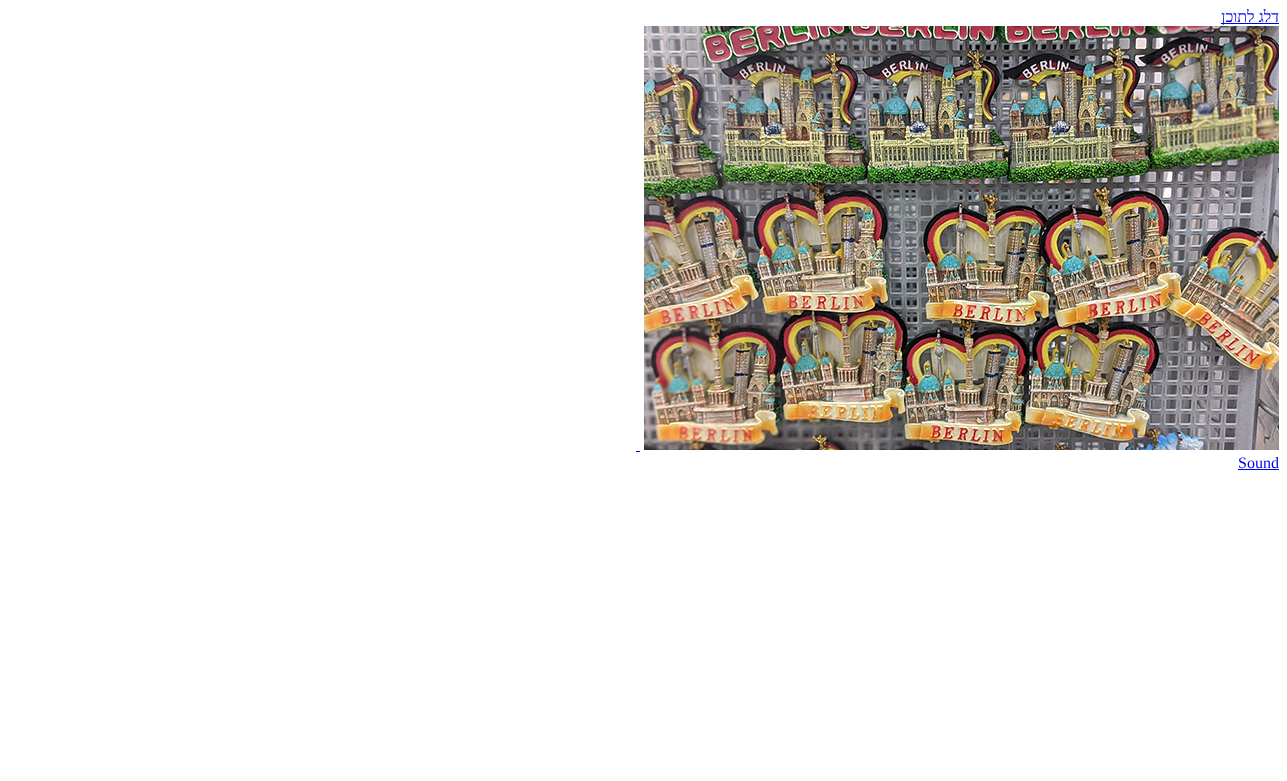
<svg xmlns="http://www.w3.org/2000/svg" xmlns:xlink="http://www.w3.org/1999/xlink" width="1287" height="781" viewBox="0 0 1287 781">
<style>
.cls-1{font:16px Liberation Serif;direction:rtl;fill:#0000ee}
.cls-2{font:16px Liberation Serif;fill:#0000ee}
</style>
<rect width="100%" height="100%" fill="#ffffff"/>
<rect fill="#0000ee" x="1221" y="23" width="58" height="1"/>
<image xlink:href="image0.png" x="644" y="26" width="635" height="424"/>
<rect fill="#0000ee" x="636" y="451" width="4" height="1"/>
<rect fill="#0000ee" x="1238" y="469" width="41" height="1"/>
<text class="cls-1" x="1279" y="22">דלג לתוכן</text>
<text class="cls-2" x="1238" y="468">Sound</text>
</svg>
